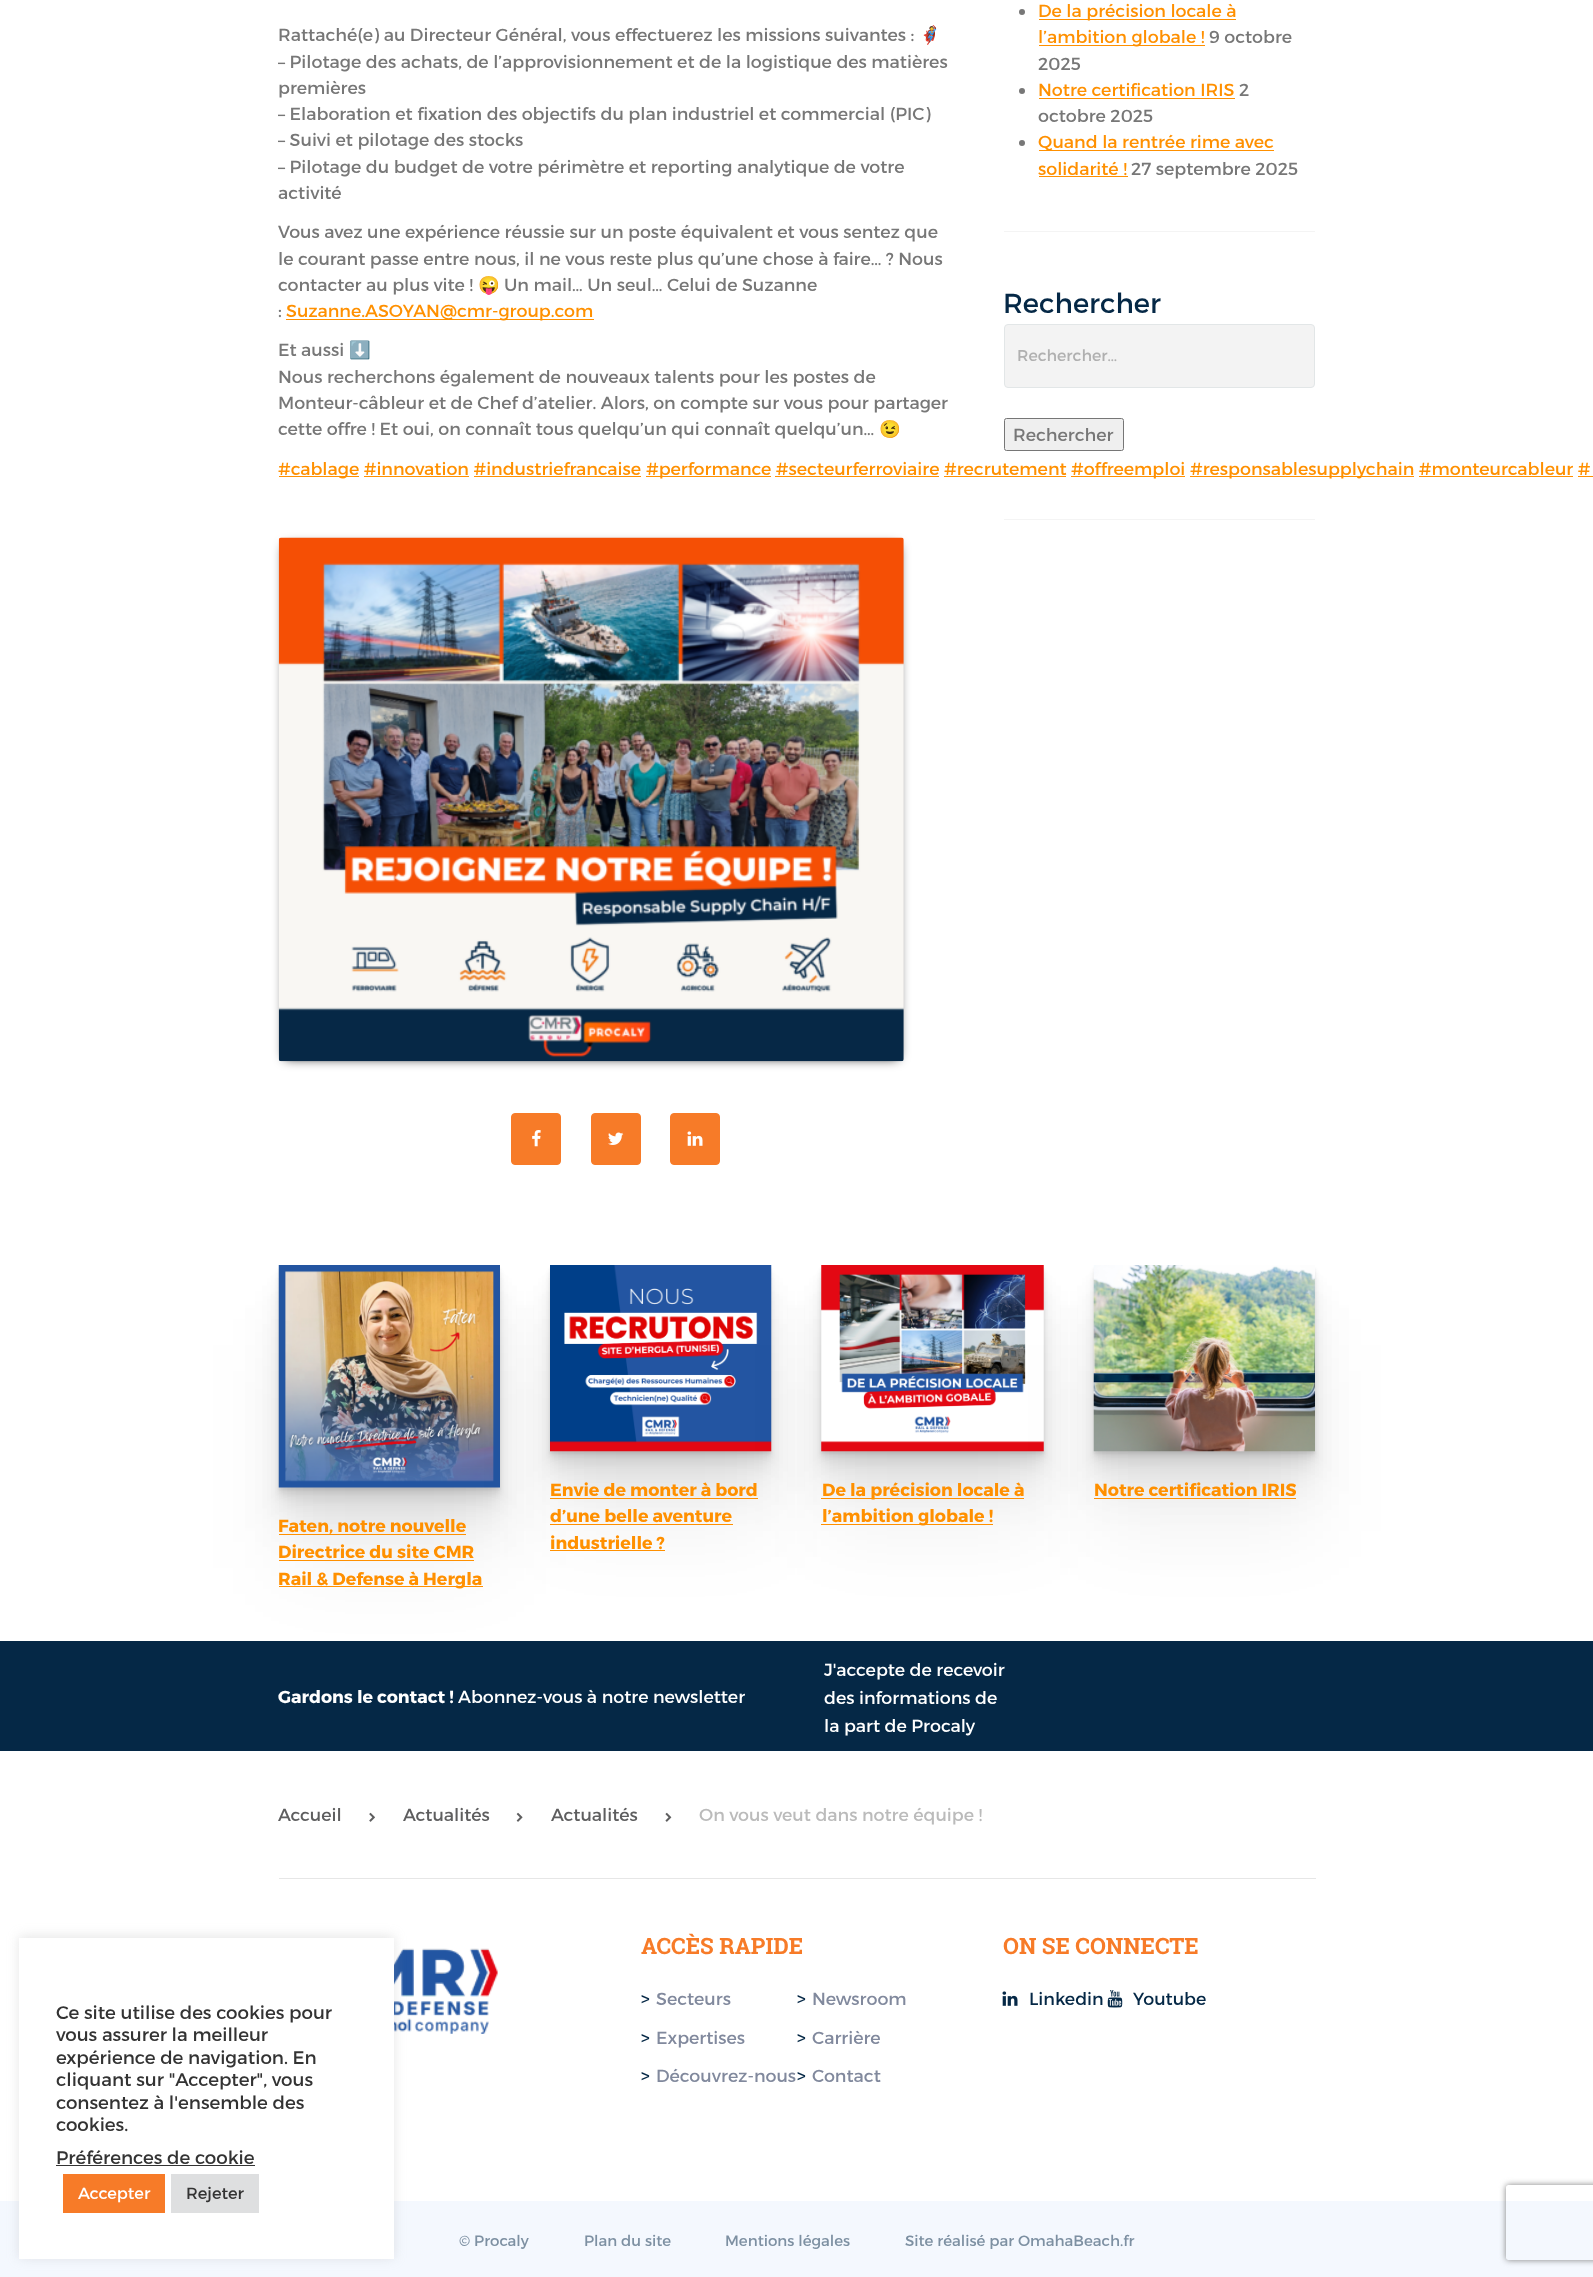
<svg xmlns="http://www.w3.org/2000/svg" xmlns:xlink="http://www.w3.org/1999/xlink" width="1593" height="2277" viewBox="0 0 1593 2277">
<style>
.cls-1{font:18.3px Montserrat;fill:#333333}
.cls-2{font:16.25px Montserrat;fill:#ffffff}
.cls-3{font:16.25px Montserrat;fill:#333333}
.cls-4{font:17.5px Montserrat;fill:#ff9000}
.cls-5{font:17.5px Montserrat;fill:#777777}
.cls-6{font:27.5px Montserrat;fill:#052846}
.cls-7{font:15.75px Montserrat;fill:#b0b0b0}
.cls-8{font:17.5px Noto Color Emoji;fill:#777777}
.cls-9{font:bold 17.5px Montserrat;fill:#ff9000}
.cls-10{font:bold 17.5px Montserrat;fill:#ffffff}
.cls-11{font:17.5px Montserrat;fill:#ffffff}
.cls-12{font:17.5px Montserrat;fill:#5e5e5f}
.cls-13{font:17.5px Montserrat;fill:#bbbbbb}
.cls-14{font:bold 22.5px Roboto Slab;fill:#f77b28}
.cls-15{font:17.5px Montserrat;fill:#052846}
.cls-16{font:17.5px Montserrat;fill:#81899d}
.cls-17{font:15px Montserrat;fill:#7d90a2}
</style>
<defs>
<clipPath id="clip1"><path d="M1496 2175H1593V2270H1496ZM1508.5 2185H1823.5C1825 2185 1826 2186 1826 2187.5V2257.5C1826 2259 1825 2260 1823.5 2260H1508.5C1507 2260 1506 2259 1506 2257.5V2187.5C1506 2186 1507 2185 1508.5 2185Z" clip-rule="evenodd"/></clipPath>
</defs>
<rect width="100%" height="100%" fill="#ffffff"/>
<image xlink:href="image11.png" x="394" y="1948" width="104" height="86"/>
<rect fill="#f4f8fe" x="0" y="2201" width="1593" height="76"/>
<rect fill="#acabab" fill-opacity="0.3" filter="blur(6px)" x="19" y="1936" width="375" height="322"/>
<rect fill="#ffffff" x="19" y="1938" width="375" height="321"/>
<rect fill="#333333" x="56" y="2165" width="199" height="1"/>
<rect fill="#f77b28" x="63" y="2174" width="102" height="39"/>
<rect fill="#dedfe0" x="171" y="2174" width="88" height="39"/>
<rect fill="#f4f4f4" x="1004" y="231" width="311" height="1"/>
<circle fill="#777777" cx="1022" cy="12" r="3"/>
<rect fill="#ff9000" x="1039" y="19" width="197" height="1"/>
<rect fill="#ff9000" x="1039" y="45" width="166" height="1"/>
<circle fill="#777777" cx="1022" cy="91" r="3"/>
<rect fill="#ff9000" x="1039" y="98" width="196" height="1"/>
<circle fill="#777777" cx="1022" cy="143" r="3"/>
<rect fill="#ff9000" x="1039" y="150" width="235" height="1"/>
<rect fill="#ff9000" x="1039" y="176" width="89" height="1"/>
<rect fill="#f4f4f4" x="1004" y="519" width="311" height="1"/>
<rect fill="#f3f3f3" stroke="#e2e6e7" x="1004.5" y="324.5" width="310" height="63" rx="3.5"/>
<rect fill="#efefef" stroke="#767676" x="1004.5" y="418.5" width="119" height="32" rx="2"/>
<rect fill="#ff9000" x="286" y="319" width="308" height="1"/>
<rect fill="#ff9000" x="279" y="476" width="80" height="1"/>
<rect fill="#ff9000" x="646" y="476" width="125" height="1"/>
<rect fill="#ff9000" x="1071" y="476" width="114" height="1"/>
<rect fill="#ff9000" x="1190" y="476" width="224" height="1"/>
<rect fill="#ff9000" x="364" y="476" width="105" height="1"/>
<rect fill="#ff9000" x="474" y="476" width="167" height="1"/>
<rect fill="#ff9000" x="775" y="476" width="164" height="1"/>
<rect fill="#ff9000" x="944" y="476" width="122" height="1"/>
<rect fill="#ff9000" x="1419" y="476" width="154" height="1"/>
<rect fill="#ff9000" x="1578" y="476" width="15" height="1"/>
<rect fill="#000000" filter="blur(6px)" x="285" y="546" width="613" height="512"/>
<image xlink:href="image0.png" x="278" y="537" width="626" height="525"/>
<rect fill="#f77b28" stroke="#f77b28" x="511.5" y="1113.5" width="49" height="51" rx="3.5"/>
<image xlink:href="image1.png" x="532" y="1130" width="9" height="17"/>
<rect fill="#f77b28" stroke="#f77b28" x="591.5" y="1113.5" width="49" height="51" rx="3.5"/>
<image xlink:href="image2.png" x="608" y="1132" width="16" height="13"/>
<rect fill="#f77b28" stroke="#f77b28" x="670.5" y="1113.5" width="49" height="51" rx="3.5"/>
<image xlink:href="image3.png" x="687" y="1131" width="16" height="15"/>
<rect fill="#052846" x="0" y="1641" width="1593" height="110"/>
<rect fill="#000000" fill-opacity="0.05" filter="blur(40px)" x="279" y="1345" width="221" height="223"/>
<rect fill="#000000" fill-opacity="0.05" filter="blur(20px)" x="279" y="1305" width="221" height="223"/>
<rect fill="#000000" fill-opacity="0.05" filter="blur(10px)" x="279" y="1285" width="221" height="223"/>
<rect fill="#000000" fill-opacity="0.05" filter="blur(5px)" x="279" y="1275" width="221" height="223"/>
<rect fill="#000000" fill-opacity="0.05" filter="blur(2.5px)" x="279" y="1270" width="221" height="223"/>
<rect fill="#000000" fill-opacity="0.05" filter="blur(1px)" x="279" y="1268" width="221" height="222"/>
<image xlink:href="image7.png" x="278" y="1265" width="222" height="223"/>
<rect fill="#ff9000" x="279" y="1534" width="187" height="1"/>
<rect fill="#ff9000" x="279" y="1560" width="195" height="1"/>
<rect fill="#ff9000" x="279" y="1586" width="204" height="1"/>
<rect fill="#000000" fill-opacity="0.05" filter="blur(40px)" x="550" y="1345" width="221" height="186"/>
<rect fill="#000000" fill-opacity="0.05" filter="blur(20px)" x="550" y="1305" width="221" height="186"/>
<rect fill="#000000" fill-opacity="0.05" filter="blur(10px)" x="550" y="1285" width="221" height="186"/>
<rect fill="#000000" fill-opacity="0.05" filter="blur(5px)" x="550" y="1275" width="221" height="186"/>
<rect fill="#000000" fill-opacity="0.05" filter="blur(2.5px)" x="550" y="1270" width="221" height="186"/>
<rect fill="#000000" fill-opacity="0.05" filter="blur(1px)" x="550" y="1268" width="221" height="186"/>
<image xlink:href="image4.png" x="550" y="1265" width="222" height="187"/>
<rect fill="#ff9000" x="550" y="1498" width="208" height="1"/>
<rect fill="#ff9000" x="550" y="1524" width="183" height="1"/>
<rect fill="#ff9000" x="550" y="1550" width="115" height="1"/>
<rect fill="#000000" fill-opacity="0.05" filter="blur(40px)" x="821" y="1345" width="223" height="186"/>
<rect fill="#000000" fill-opacity="0.05" filter="blur(20px)" x="821" y="1305" width="223" height="186"/>
<rect fill="#000000" fill-opacity="0.05" filter="blur(10px)" x="821" y="1285" width="223" height="186"/>
<rect fill="#000000" fill-opacity="0.05" filter="blur(5px)" x="821" y="1275" width="223" height="186"/>
<rect fill="#000000" fill-opacity="0.05" filter="blur(2.5px)" x="821" y="1270" width="223" height="186"/>
<rect fill="#000000" fill-opacity="0.05" filter="blur(1px)" x="821" y="1268" width="223" height="186"/>
<image xlink:href="image5.png" x="821" y="1265" width="223" height="187"/>
<rect fill="#ff9000" x="821" y="1498" width="203" height="1"/>
<rect fill="#ff9000" x="821" y="1524" width="172" height="1"/>
<rect fill="#000000" fill-opacity="0.05" filter="blur(40px)" x="1094" y="1345" width="221" height="186"/>
<rect fill="#000000" fill-opacity="0.05" filter="blur(20px)" x="1094" y="1305" width="221" height="186"/>
<rect fill="#000000" fill-opacity="0.05" filter="blur(10px)" x="1094" y="1285" width="221" height="186"/>
<rect fill="#000000" fill-opacity="0.05" filter="blur(5px)" x="1094" y="1275" width="221" height="186"/>
<rect fill="#000000" fill-opacity="0.05" filter="blur(2.5px)" x="1094" y="1270" width="221" height="186"/>
<rect fill="#000000" fill-opacity="0.05" filter="blur(1px)" x="1094" y="1268" width="221" height="186"/>
<image xlink:href="image6.png" x="1093" y="1265" width="222" height="187"/>
<rect fill="#ff9000" x="1094" y="1498" width="202" height="1"/>
<rect fill="#e6e6e6" x="279" y="1878" width="1037" height="1"/>
<image xlink:href="image8.png" x="369" y="1812" width="6" height="10"/>
<image xlink:href="image9.png" x="516" y="1812" width="7" height="10"/>
<image xlink:href="image10.png" x="665" y="1812" width="7" height="10"/>
<image xlink:href="image12.png" x="1002" y="1991" width="16" height="15"/>
<image xlink:href="image13.png" x="1107" y="1990" width="16" height="18"/>
<g clip-path="url(#clip1)">
<rect fill="#808080" filter="blur(3px)" x="1506" y="2185" width="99" height="75" rx="2.5"/>
</g>
<text class="cls-1"><tspan x="56" y="2019">Ce site utilise des cookies pour</tspan><tspan x="56" y="2041">vous assurer la meilleur</tspan><tspan x="56" y="2064">expérience de navigation. En</tspan><tspan x="56" y="2086">cliquant sur "Accepter", vous</tspan><tspan x="56" y="2109">consentez à l'ensemble des</tspan><tspan x="56" y="2131">cookies.</tspan><tspan x="56" y="2164">Préférences de cookie</tspan></text>
<text class="cls-2" x="78" y="2199">Accepter</text>
<text class="cls-3" x="186" y="2199">Rejeter</text>
<text class="cls-4"><tspan x="1038" y="17">De la précision locale à</tspan><tspan x="1038" y="43">l’ambition globale !</tspan></text>
<text class="cls-5" x="1209" y="43">9 octobre</text>
<text class="cls-5" x="1038" y="70">2025</text>
<text class="cls-4" x="1038" y="96">Notre certification IRIS</text>
<text class="cls-5" x="1239" y="96">2</text>
<text class="cls-5" x="1038" y="122">octobre 2025</text>
<text class="cls-4"><tspan x="1038" y="148">Quand la rentrée rime avec</tspan><tspan x="1038" y="175">solidarité !</tspan></text>
<text class="cls-5" x="1131" y="175">27 septembre 2025</text>
<text class="cls-6" x="1003" y="313">Rechercher</text>
<text class="cls-7" x="1017" y="361">Rechercher…</text>
<text class="cls-5" x="1013" y="441">Rechercher</text>
<text class="cls-5" x="278" y="41">Rattaché(e) au Directeur Général, vous effectuerez les missions suivantes :</text>
<text class="cls-8" x="919" y="41">🦸</text>
<text class="cls-5"><tspan x="278" y="68">– Pilotage des achats, de l’approvisionnement et de la logistique des matières</tspan><tspan x="278" y="94">premières</tspan><tspan x="278" y="120">– Elaboration et fixation des objectifs du plan industriel et commercial (PIC)</tspan><tspan x="278" y="146">– Suivi et pilotage des stocks</tspan><tspan x="278" y="173">– Pilotage du budget de votre périmètre et reporting analytique de votre</tspan><tspan x="278" y="199">activité</tspan></text>
<text class="cls-5"><tspan x="278" y="238">Vous avez une expérience réussie sur un poste équivalent et vous sentez que</tspan><tspan x="278" y="265">le courant passe entre nous, il ne vous reste plus qu’une chose à faire… ? Nous</tspan><tspan x="278" y="291">contacter au plus vite !</tspan></text>
<text class="cls-8" x="478" y="291">😜</text>
<text class="cls-5" x="504" y="291">Un mail… Un seul… Celui de Suzanne</text>
<text class="cls-5" x="278" y="317">:</text>
<text class="cls-4" x="286" y="317">Suzanne.ASOYAN@cmr-group.com</text>
<text class="cls-5" x="278" y="356">Et aussi</text>
<text class="cls-8" x="349" y="356">⬇️</text>
<text class="cls-5"><tspan x="278" y="383">Nous recherchons également de nouveaux talents pour les postes de</tspan><tspan x="278" y="409">Monteur-câbleur et de Chef d’atelier. Alors, on compte sur vous pour partager</tspan><tspan x="278" y="435">cette offre ! Et oui, on connaît tous quelqu’un qui connaît quelqu’un…</tspan></text>
<text class="cls-8" x="879" y="435">😉</text>
<text class="cls-4" x="278" y="475">#cablage #innovation #industriefrancaise</text>
<text class="cls-4" x="646" y="475">#performance #secteurferroviaire #recrutement</text>
<text class="cls-4" x="1071" y="475">#offreemploi</text>
<text class="cls-4" x="1190" y="475">#responsablesupplychain #monteurcableur #</text>
<text class="cls-9"><tspan x="550" y="1496">Envie de monter à bord</tspan><tspan x="550" y="1522">d’une belle aventure</tspan><tspan x="550" y="1549">industrielle ?</tspan></text>
<text class="cls-9"><tspan x="822" y="1496">De la précision locale à</tspan><tspan x="822" y="1522">l’ambition globale !</tspan></text>
<text class="cls-9" x="1094" y="1496">Notre certification IRIS</text>
<text class="cls-9"><tspan x="278" y="1532">Faten, notre nouvelle</tspan><tspan x="278" y="1558">Directrice du site CMR</tspan><tspan x="278" y="1585">Rail &amp; Defense à Hergla</tspan></text>
<text class="cls-10" x="278" y="1703">Gardons le contact !</text>
<text class="cls-11" x="458" y="1703">Abonnez-vous à notre newsletter</text>
<text class="cls-11"><tspan x="824" y="1676">J'accepte de recevoir</tspan><tspan x="824" y="1704">des informations de</tspan><tspan x="824" y="1732">la part de Procaly</tspan></text>
<text class="cls-12" x="278" y="1821">Accueil</text>
<text class="cls-12" x="403" y="1821">Actualités</text>
<text class="cls-12" x="551" y="1821">Actualités</text>
<text class="cls-13" x="699" y="1821">On vous veut dans notre équipe !</text>
<text class="cls-14" x="641" y="1954">ACCÈS RAPIDE</text>
<text class="cls-15" x="641" y="2005">&gt;</text>
<text class="cls-16" x="656" y="2005">Secteurs</text>
<text class="cls-15" x="797" y="2005">&gt;</text>
<text class="cls-16" x="812" y="2005">Newsroom</text>
<text class="cls-15" x="641" y="2044">&gt;</text>
<text class="cls-16" x="656" y="2044">Expertises</text>
<text class="cls-15" x="797" y="2044">&gt;</text>
<text class="cls-16" x="812" y="2044">Carrière</text>
<text class="cls-15" x="641" y="2082">&gt;</text>
<text class="cls-16" x="656" y="2082">Découvrez-nous</text>
<text class="cls-15" x="797" y="2082">&gt;</text>
<text class="cls-16" x="812" y="2082">Contact</text>
<text class="cls-14" x="1003" y="1954">ON SE CONNECTE</text>
<text class="cls-15" x="1029" y="2005">Linkedin</text>
<text class="cls-15" x="1133" y="2005">Youtube</text>
<text class="cls-17" x="459" y="2246">© Procaly</text>
<text class="cls-17" x="584" y="2246">Plan du site</text>
<text class="cls-17" x="725" y="2246">Mentions légales</text>
<text class="cls-17" x="905" y="2246">Site réalisé par OmahaBeach.fr</text>
</svg>
